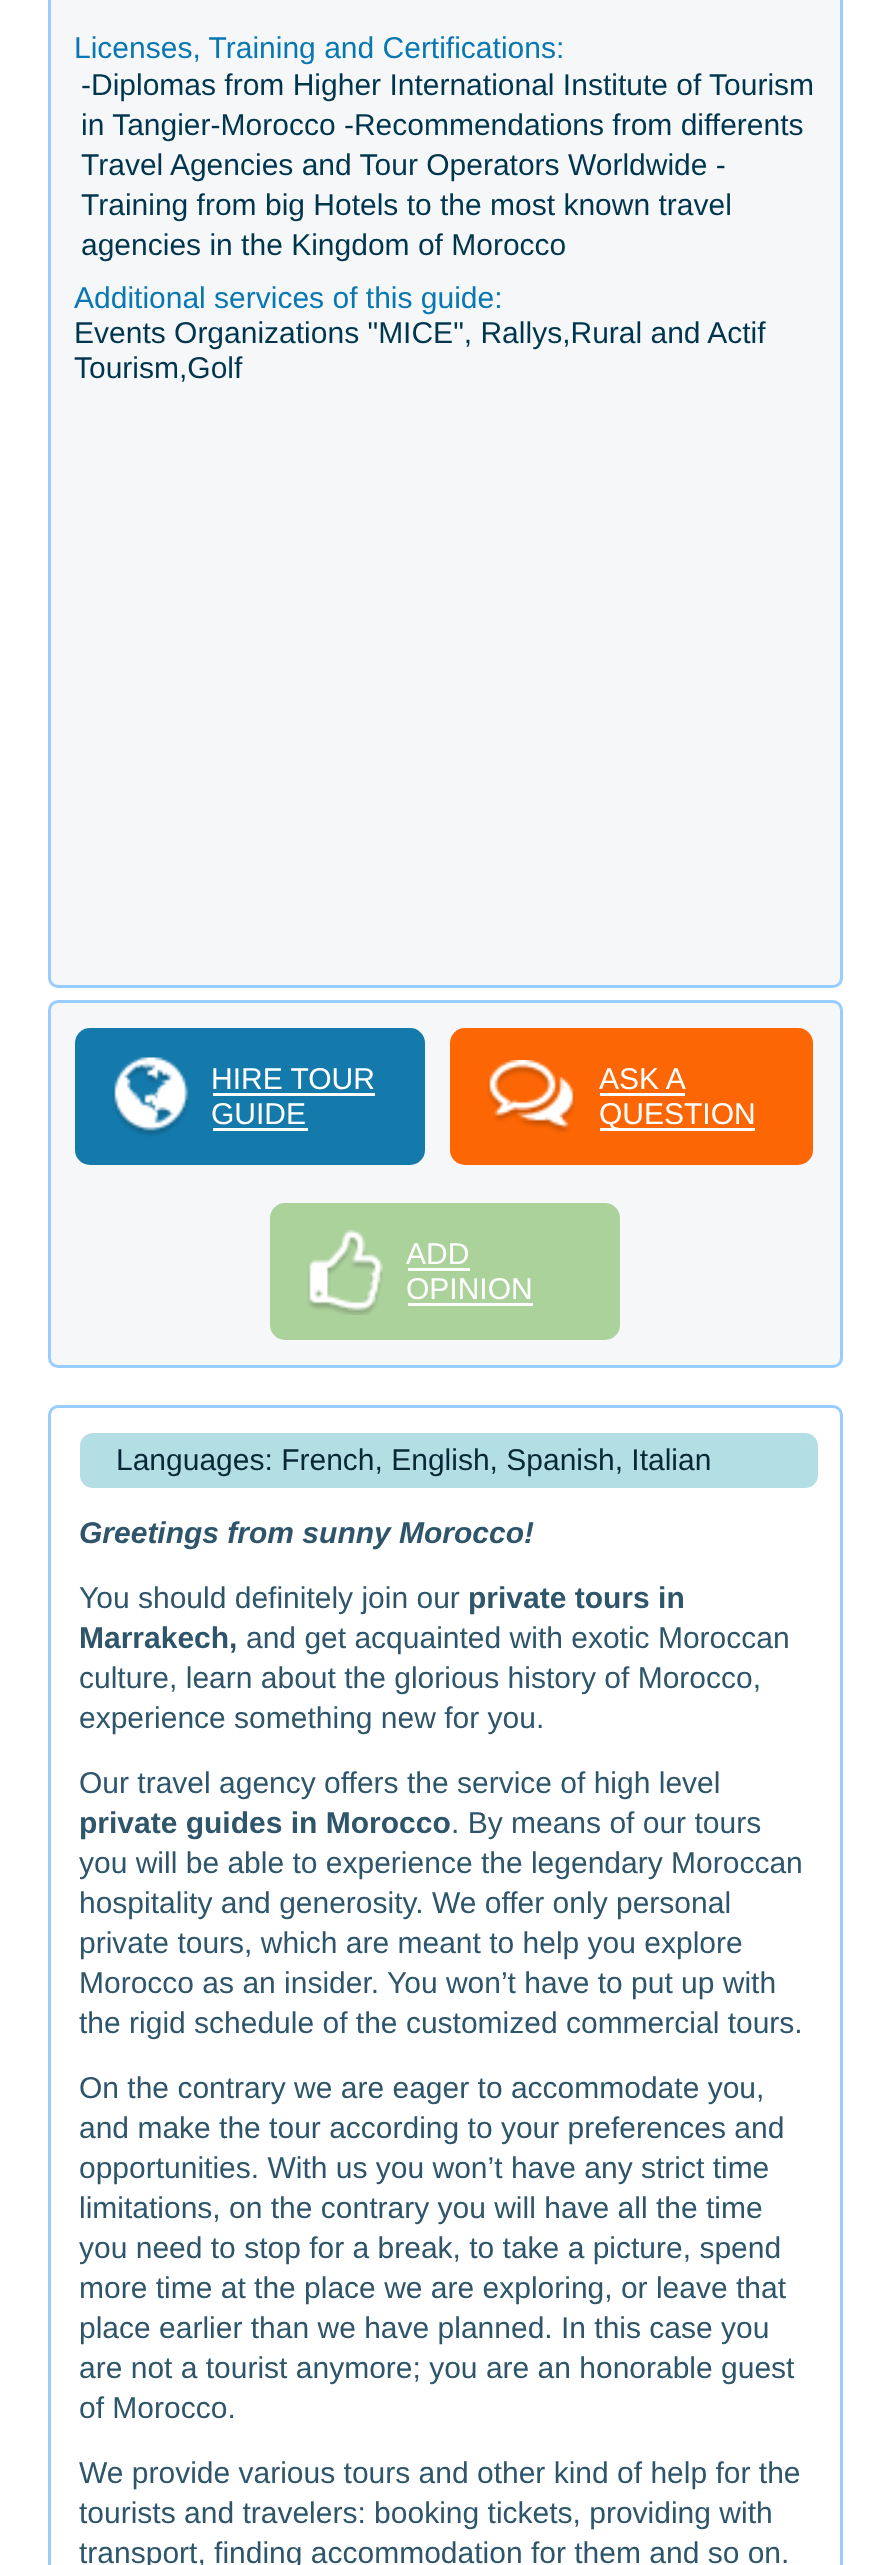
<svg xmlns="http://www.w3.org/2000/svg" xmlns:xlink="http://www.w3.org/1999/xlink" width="882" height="2565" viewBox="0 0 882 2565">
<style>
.cls-1{font:30px Liberation Sans;fill:#0977b2}
.cls-2{font:30px Liberation Sans;fill:#00354e}
.cls-3{font:30px Liberation Sans;fill:#ffffff}
.cls-4{font:30px Liberation Sans;fill:#082737}
.cls-5{font:italic bold 30px Liberation Sans;fill:#2e556a}
.cls-6{font:30px Liberation Sans;fill:#2e556a}
.cls-7{font:bold 30px Liberation Sans;fill:#2e556a}
</style>
<rect width="100%" height="100%" fill="#ffffff"/>
<rect fill="#f5f7f8" stroke="#99ccff" stroke-width="3" x="49.5" y="-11.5" width="792" height="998" rx="8.5"/>
<rect fill="#f5f7f8" stroke="#99ccff" stroke-width="3" x="49.5" y="1001.5" width="792" height="365" rx="8.5"/>
<rect fill="#147aac" x="75" y="1028" width="350" height="137" rx="15"/>
<image xlink:href="image0.png" x="112" y="1057" width="78" height="80"/>
<rect fill="#ffffff" x="213" y="1093" width="162" height="3"/>
<rect fill="#ffffff" x="213" y="1128" width="95" height="3"/>
<rect fill="#fc6604" x="450" y="1028" width="363" height="137" rx="15"/>
<image xlink:href="image1.png" x="487" y="1060" width="88" height="73"/>
<rect fill="#ffffff" x="600" y="1093" width="85" height="3"/>
<rect fill="#ffffff" x="600" y="1128" width="155" height="3"/>
<rect fill="#acd29c" x="270" y="1203" width="350" height="137" rx="15"/>
<image xlink:href="image2.png" x="307" y="1230" width="76" height="85"/>
<rect fill="#ffffff" x="408" y="1268" width="62" height="3"/>
<rect fill="#ffffff" x="408" y="1303" width="125" height="3"/>
<path fill="none" stroke="#99ccff" stroke-width="3" d="M58 1406.5H833C837.5 1406.5 841.5 1410.5 841.5 1415V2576.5H49.5V1415C49.5 1410.5 53.5 1406.5 58 1406.5Z"/>
<rect fill="#b3dee4" x="80" y="1433" width="738" height="55" rx="13"/>
<text class="cls-1" x="74" y="58">Licenses, Training and Certifications:</text>
<text class="cls-2"><tspan x="81" y="95">-Diplomas from Higher International Institute of Tourism</tspan><tspan x="81" y="135">in Tangier-Morocco -Recommendations from differents</tspan><tspan x="81" y="175">Travel Agencies and Tour Operators Worldwide -</tspan><tspan x="81" y="215">Training from big Hotels to the most known travel</tspan><tspan x="81" y="255">agencies in the Kingdom of Morocco</tspan></text>
<text class="cls-1" x="74" y="308">Additional services of this guide:</text>
<text class="cls-2"><tspan x="74" y="343">Events Organizations "MICE", Rallys,Rural and Actif</tspan><tspan x="74" y="378">Tourism,Golf</tspan></text>
<text class="cls-3"><tspan x="211" y="1089">HIRE TOUR</tspan><tspan x="211" y="1124">GUIDE</tspan></text>
<text class="cls-3"><tspan x="599" y="1089">ASK A</tspan><tspan x="599" y="1124">QUESTION</tspan></text>
<text class="cls-3"><tspan x="406" y="1264">ADD</tspan><tspan x="406" y="1299">OPINION</tspan></text>
<text class="cls-4" x="116" y="1470">Languages: French, English, Spanish, Italian</text>
<text class="cls-5" x="79" y="1543">Greetings from sunny Morocco!</text>
<text class="cls-6" x="79" y="1608">You should definitely join our</text>
<text class="cls-7" x="468" y="1608">private tours in</text>
<text class="cls-7" x="79" y="1648">Marrakech,</text>
<text class="cls-6" x="246" y="1648">and get acquainted with exotic Moroccan</text>
<text class="cls-6"><tspan x="79" y="1688">culture, learn about the glorious history of Morocco,</tspan><tspan x="79" y="1728">experience something new for you.</tspan></text>
<text class="cls-6" x="79" y="1793">Our travel agency offers the service of high level</text>
<text class="cls-7" x="79" y="1833">private guides in Morocco</text>
<text class="cls-6" x="451" y="1833">. By means of our tours</text>
<text class="cls-6"><tspan x="79" y="1873">you will be able to experience the legendary Moroccan</tspan><tspan x="79" y="1913">hospitality and generosity. We offer only personal</tspan><tspan x="79" y="1953">private tours, which are meant to help you explore</tspan><tspan x="79" y="1993">Morocco as an insider. You won’t have to put up with</tspan><tspan x="79" y="2033">the rigid schedule of the customized commercial tours.</tspan></text>
<text class="cls-6"><tspan x="79" y="2098">On the contrary we are eager to accommodate you,</tspan><tspan x="79" y="2138">and make the tour according to your preferences and</tspan><tspan x="79" y="2178">opportunities. With us you won’t have any strict time</tspan><tspan x="79" y="2218">limitations, on the contrary you will have all the time</tspan><tspan x="79" y="2258">you need to stop for a break, to take a picture, spend</tspan><tspan x="79" y="2298">more time at the place we are exploring, or leave that</tspan><tspan x="79" y="2338">place earlier than we have planned. In this case you</tspan><tspan x="79" y="2378">are not a tourist anymore; you are an honorable guest</tspan><tspan x="79" y="2418">of Morocco.</tspan></text>
<text class="cls-6"><tspan x="79" y="2483">We provide various tours and other kind of help for the</tspan><tspan x="79" y="2523">tourists and travelers: booking tickets, providing with</tspan><tspan x="79" y="2563">transport, finding accommodation for them and so on.</tspan></text>
</svg>
